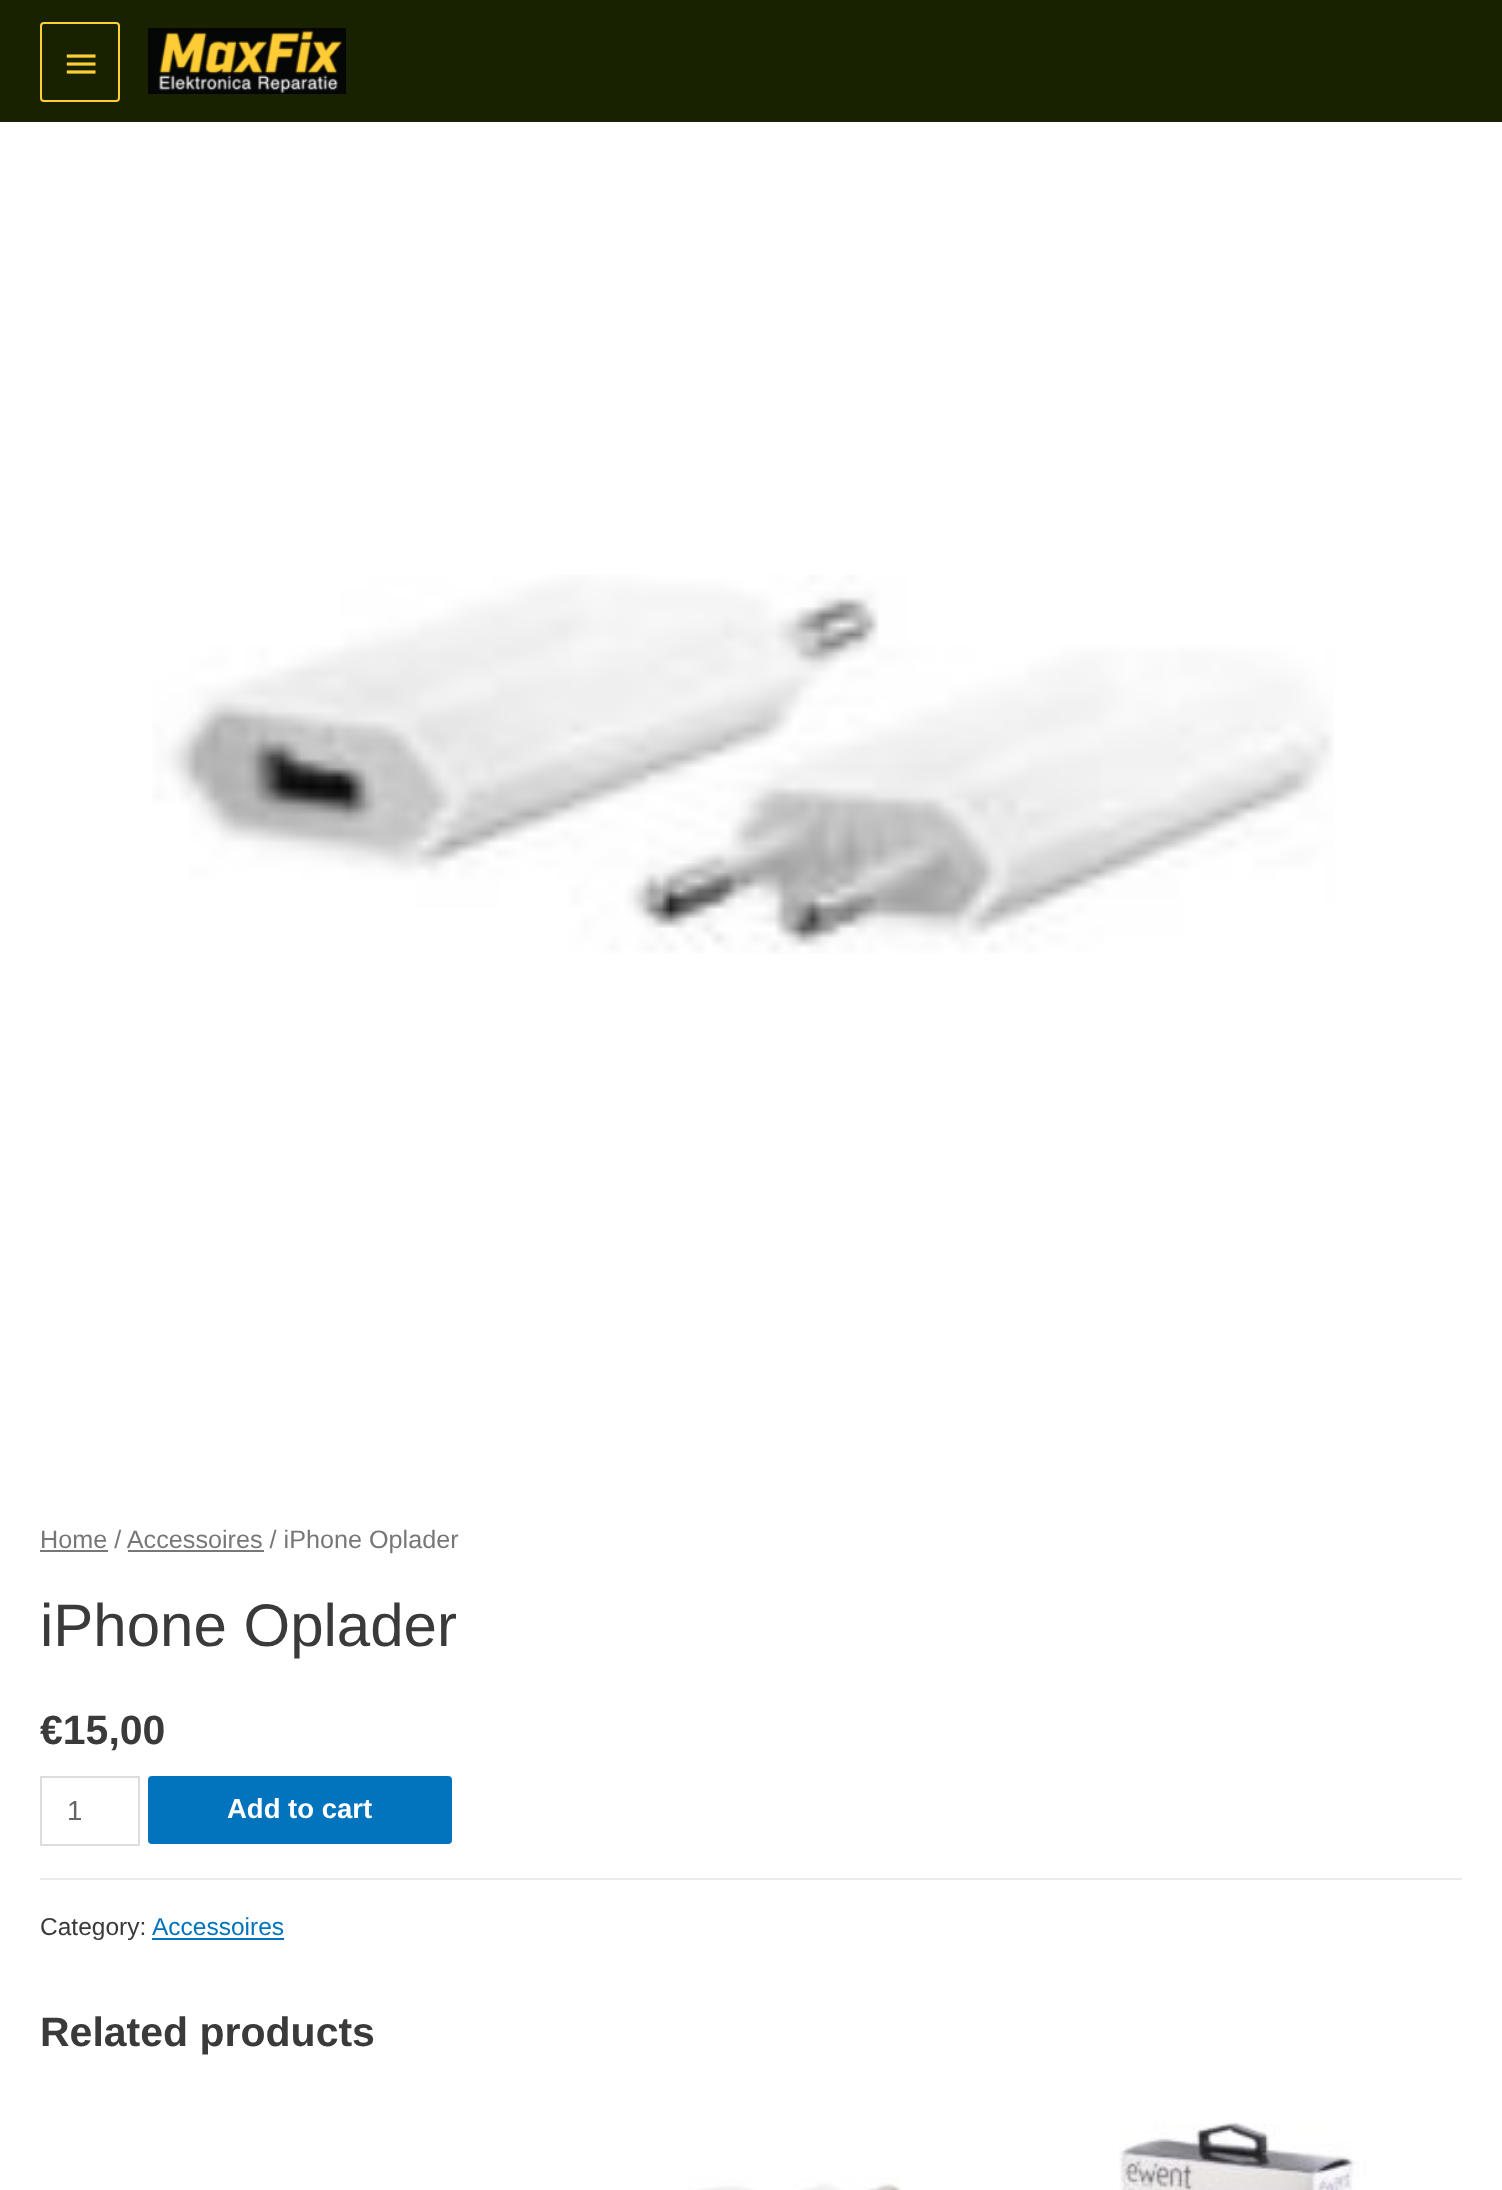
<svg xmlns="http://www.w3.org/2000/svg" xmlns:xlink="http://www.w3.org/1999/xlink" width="1502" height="2190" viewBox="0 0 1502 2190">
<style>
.cls-1{font:25.2px Liberation Sans;fill:#777777}
.cls-2{font:60px Liberation Sans;fill:#3a3a3a}
.cls-3{font:bold 41px Liberation Sans;fill:#3a3a3a}
.cls-4{font:27.5px Liberation Sans;fill:#666666}
.cls-5{font:bold 27.5px Liberation Sans;fill:#ffffff}
.cls-6{font:24.5px Liberation Sans;fill:#3a3a3a}
.cls-7{font:24.5px Liberation Sans;fill:#0274be}
</style>
<rect width="100%" height="100%" fill="#ffffff"/>
<rect fill="#182100" x="0" y="0" width="1502" height="122"/>
<rect fill="none" stroke="#ffcf35" stroke-width="2" x="41" y="23" width="78" height="78" rx="3"/>
<image xlink:href="image0.png" x="66" y="54" width="30" height="20"/>
<image xlink:href="image1.png" x="148" y="28" width="198" height="66"/>
<image xlink:href="image2.png" x="152" y="574" width="1182" height="380"/>
<rect fill="#777777" x="40" y="1550" width="68" height="2"/>
<rect fill="#777777" x="128" y="1550" width="136" height="2"/>
<rect fill="none" stroke="#dddddd" stroke-width="2" x="41" y="1777" width="98" height="68"/>
<rect fill="#0274be" x="148" y="1776" width="304" height="68" rx="4"/>
<rect fill="#ebebeb" x="40" y="1878" width="1422" height="2"/>
<rect fill="#0274be" x="152" y="1938" width="132" height="2"/>
<image xlink:href="image3.png" x="687" y="2178" width="215" height="12"/>
<image xlink:href="image4.png" x="1119" y="2121" width="248" height="69"/>
<text class="cls-1" x="40" y="1548">Home / Accessoires / iPhone Oplader</text>
<text class="cls-2" x="40" y="1646">iPhone Oplader</text>
<text class="cls-3" x="40" y="1744">€15,00</text>
<text class="cls-4" x="67" y="1820">1</text>
<text class="cls-5" x="227" y="1818">Add to cart</text>
<text class="cls-6" x="40" y="1935">Category:</text>
<text class="cls-7" x="152" y="1935">Accessoires</text>
<text class="cls-3" x="40" y="2046">Related products</text>
</svg>
